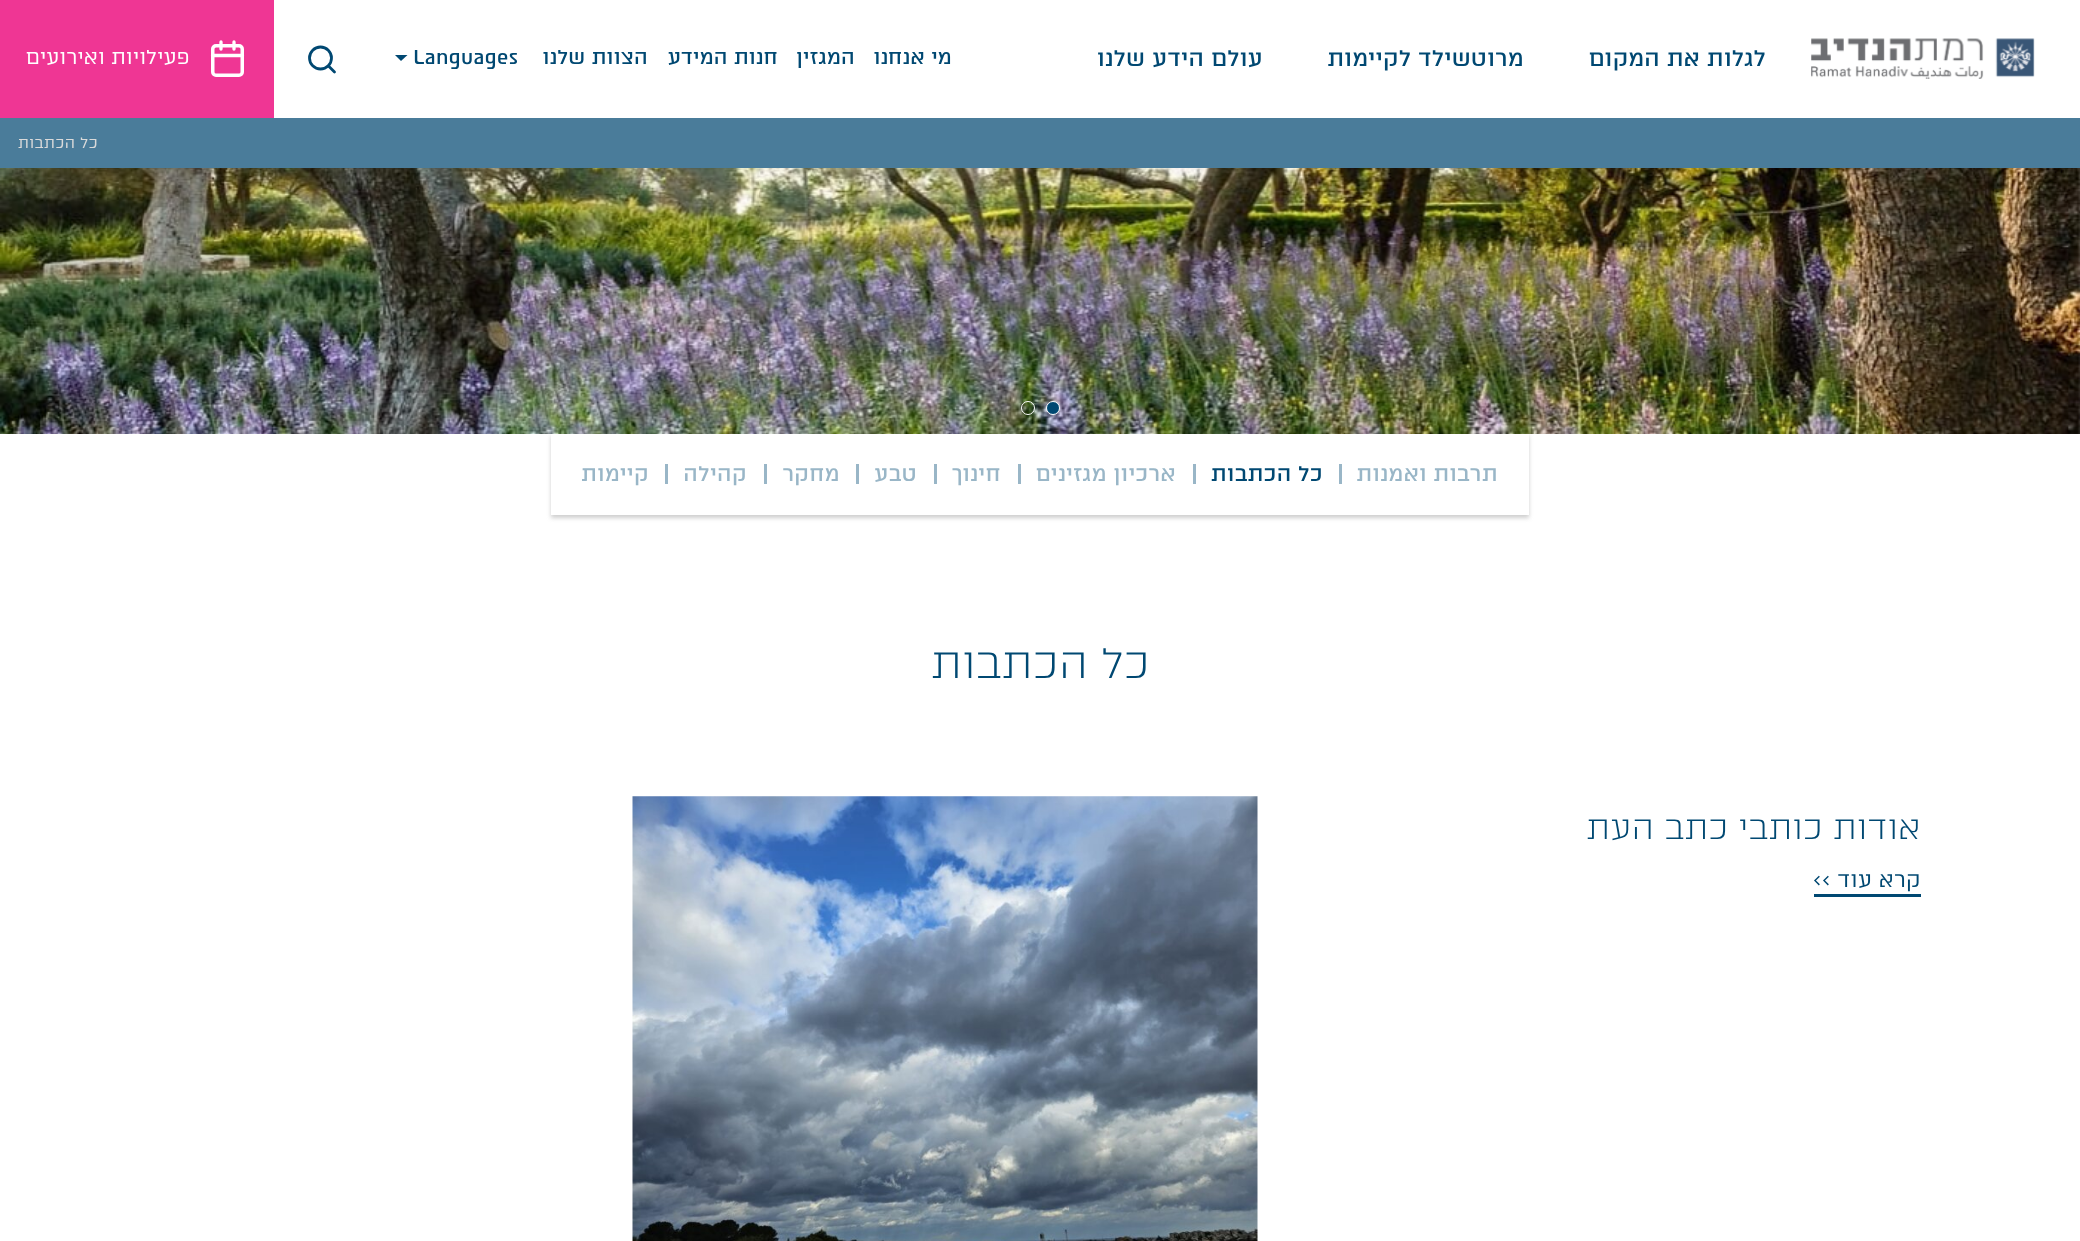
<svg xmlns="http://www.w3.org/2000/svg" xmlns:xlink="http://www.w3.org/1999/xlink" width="2080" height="1241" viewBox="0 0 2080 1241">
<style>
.cls-1{font:500 22.5px 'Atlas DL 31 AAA';letter-spacing:0.5px;direction:rtl;fill:#004872}
.cls-2{font:500 20px 'Atlas DL 31 AAA';letter-spacing:0.4px;direction:rtl;fill:#004872}
.cls-3{font:500 20px 'Atlas DL 31 AAA';letter-spacing:0.4px;fill:#004872}
.cls-4{font:20px 'Atlas DL 31 AAA';letter-spacing:0.4px;direction:rtl;fill:#ffffff}
.cls-5{font:15px 'Atlas DL 31 AAA';letter-spacing:0.5px;direction:rtl;fill:#dadada}
.cls-6{font:500 21.25px 'Atlas DL 31 AAA';letter-spacing:0.5px;direction:rtl;fill:#99b6c7}
.cls-7{font:500 21.25px 'Atlas DL 31 AAA';letter-spacing:0.5px;direction:rtl;fill:#004872}
.cls-8{font:300 42.5px 'Atlas DL 31 AAA';letter-spacing:0.6px;direction:rtl;fill:#004872}
.cls-9{font:300 32.5px 'Atlas DL 31 AAA';letter-spacing:0.6px;direction:rtl;fill:#004872}
.cls-10{font:21.25px 'Atlas DL 31 AAA';letter-spacing:0.5px;direction:rtl;fill:#004872}
</style>
<defs>
<clipPath id="clip1"><path d="M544 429H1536V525H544ZM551 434H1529V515H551Z" clip-rule="evenodd"/></clipPath>
</defs>
<rect width="100%" height="100%" fill="#ffffff"/>
<image xlink:href="image0.png" x="1811" y="38" width="224" height="41"/>
<path fill="#004872" d="M395 55H407.5L401 61Z"/>
<circle fill="none" stroke="#004872" stroke-width="2.8" cx="320.5" cy="58" r="11"/>
<path fill="none" stroke="#004872" stroke-width="2.8" stroke-linecap="round" stroke-linejoin="round" d="M334.5 72L328.5 66"/>
<rect fill="#ef3694" x="0" y="0" width="274" height="118"/>
<rect fill="none" stroke="#ffffff" stroke-width="3.5" x="212.75" y="45.75" width="29.5" height="29.5" rx="3.25"/>
<path fill="none" stroke="#ffffff" stroke-width="3.3" stroke-linecap="round" stroke-linejoin="round" d="M234 42V49M221 42V49M212.5 55.5H242.5"/>
<rect fill="#4a7c9a" x="0" y="118" width="2080" height="50"/>
<g clip-path="url(#clip1)">
<rect fill="#9d9d9d" fill-opacity="0.5" filter="blur(2px)" x="551" y="436" width="978" height="82"/>
</g>
<image xlink:href="image1.png" x="0" y="168" width="2080" height="266"/>
<circle fill="#004872" stroke="#ffffff" cx="1053" cy="408" r="6.5"/>
<circle fill="none" stroke="#ffffff" cx="1028" cy="408" r="6.5"/>
<rect fill="#99b6c7" x="1339" y="464" width="3" height="20"/>
<rect fill="#99b6c7" x="1193" y="464" width="3" height="20"/>
<rect fill="#99b6c7" x="1018" y="464" width="3" height="20"/>
<rect fill="#99b6c7" x="934" y="464" width="3" height="20"/>
<rect fill="#99b6c7" x="856" y="464" width="3" height="20"/>
<rect fill="#99b6c7" x="764" y="464" width="3" height="20"/>
<rect fill="#99b6c7" x="665" y="464" width="3" height="20"/>
<rect fill="#004872" x="1814" y="894" width="107" height="3"/>
<image xlink:href="image2.png" x="632" y="796" width="626" height="445"/>
<text class="cls-1" x="1766" y="66">לגלות את המקום</text>
<text class="cls-1" x="1524" y="66">מרוטשילד לקיימות</text>
<text class="cls-1" x="1263" y="66">עולם הידע שלנו</text>
<text class="cls-2" x="952" y="64">מי אנחנו</text>
<text class="cls-2" x="855" y="64">המגזין</text>
<text class="cls-2" x="778" y="64">חנות המידע</text>
<text class="cls-2" x="648" y="64">הצוות שלנו</text>
<text class="cls-3" x="413" y="64">Languages</text>
<text class="cls-4" x="190" y="64">פעילויות ואירועים</text>
<text class="cls-5" x="98" y="148">כל הכתבות</text>
<text class="cls-6" x="1498" y="481">תרבות ואמנות</text>
<text class="cls-7" x="1323" y="481">כל הכתבות</text>
<text class="cls-6" x="1176" y="481">ארכיון מגזינים</text>
<text class="cls-6" x="1001" y="481">חינוך</text>
<text class="cls-6" x="917" y="481">טבע</text>
<text class="cls-6" x="840" y="481">מחקר</text>
<text class="cls-6" x="747" y="481">קהילה</text>
<text class="cls-6" x="649" y="481">קיימות</text>
<text class="cls-8" x="1150" y="678">כל הכתבות</text>
<text class="cls-9" x="1921" y="839">אודות כותבי כתב העת</text>
<text class="cls-10" x="1921" y="887">קרא עוד &gt;&gt;</text>
</svg>
